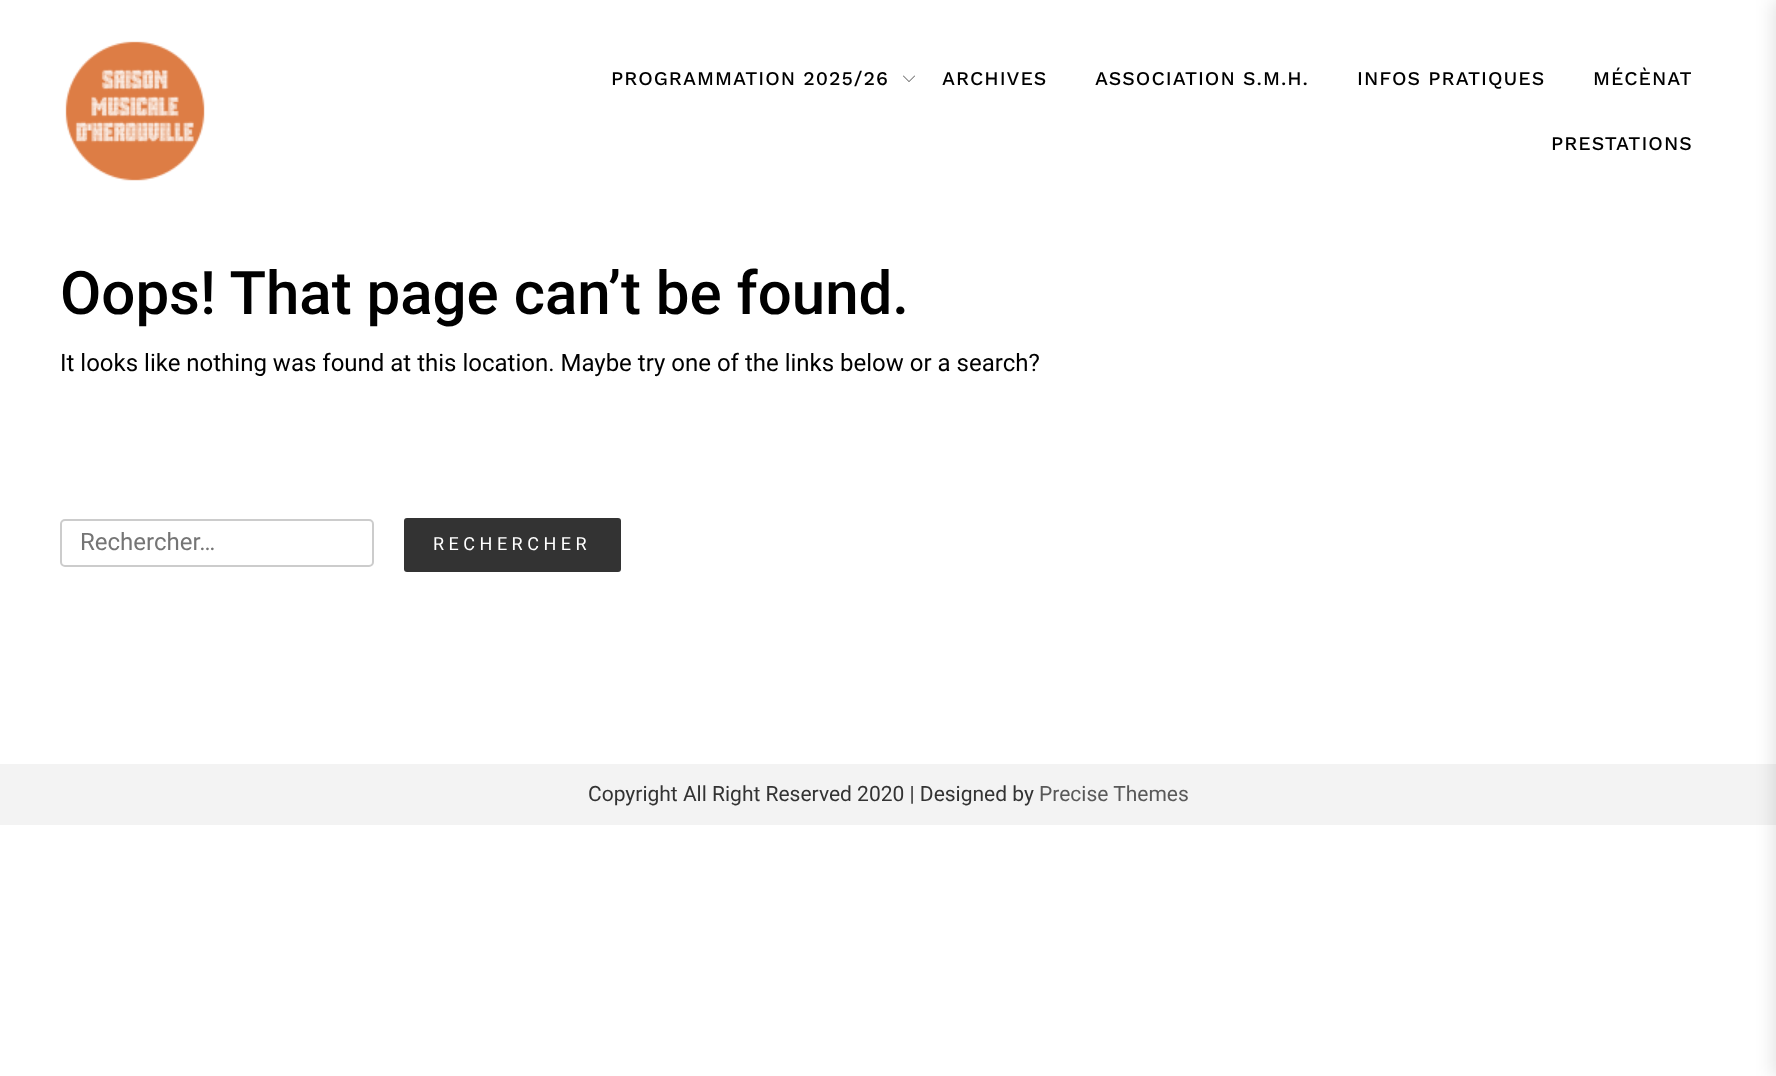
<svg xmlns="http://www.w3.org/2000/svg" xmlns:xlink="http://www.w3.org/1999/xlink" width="1776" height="1076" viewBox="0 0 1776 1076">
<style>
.cls-1{font:500 19.5px Work Sans;letter-spacing:1px;fill:#000000}
.cls-2{font:500 60px Roboto;fill:#000000}
.cls-3{font:24px Roboto;fill:#000000}
.cls-4{font:24px Roboto;fill:#757575}
.cls-5{font:18px Roboto;letter-spacing:4.5px;fill:#ffffff}
.cls-6{font:21px Roboto;fill:#333333}
.cls-7{font:21px Roboto;fill:#595959}
</style>
<rect width="100%" height="100%" fill="#ffffff"/>
<image xlink:href="image0.png" x="65" y="41" width="140" height="140"/>
<image xlink:href="image1.png" x="903" y="75" width="12" height="7"/>
<rect fill="none" stroke="#cccccc" stroke-width="2" x="61" y="520" width="312" height="46" rx="4"/>
<rect fill="#333333" x="404" y="518" width="217" height="54" rx="3"/>
<rect fill="#f3f3f3" x="0" y="764" width="1776" height="61"/>
<rect fill="#000000" fill-opacity="0.11" filter="blur(9px)" x="1773" y="0" width="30" height="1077"/>
<text class="cls-1" x="611" y="85">PROGRAMMATION 2025/26</text>
<text class="cls-1" x="942" y="85">ARCHIVES</text>
<text class="cls-1" x="1095" y="85">ASSOCIATION S.M.H.</text>
<text class="cls-1" x="1357" y="85">INFOS PRATIQUES</text>
<text class="cls-1" x="1593" y="85">MÉCÈNAT</text>
<text class="cls-1" x="1551" y="150">PRESTATIONS</text>
<text class="cls-2" x="60" y="314">Oops! That page can’t be found.</text>
<text class="cls-3" x="60" y="371">It looks like nothing was found at this location. Maybe try one of the links below or a search?</text>
<text class="cls-4" x="80" y="550">Rechercher…</text>
<text class="cls-5" x="433" y="550">RECHERCHER</text>
<text class="cls-6" x="588" y="801">Copyright All Right Reserved 2020 | Designed by</text>
<text class="cls-7" x="1039" y="801">Precise Themes</text>
</svg>
